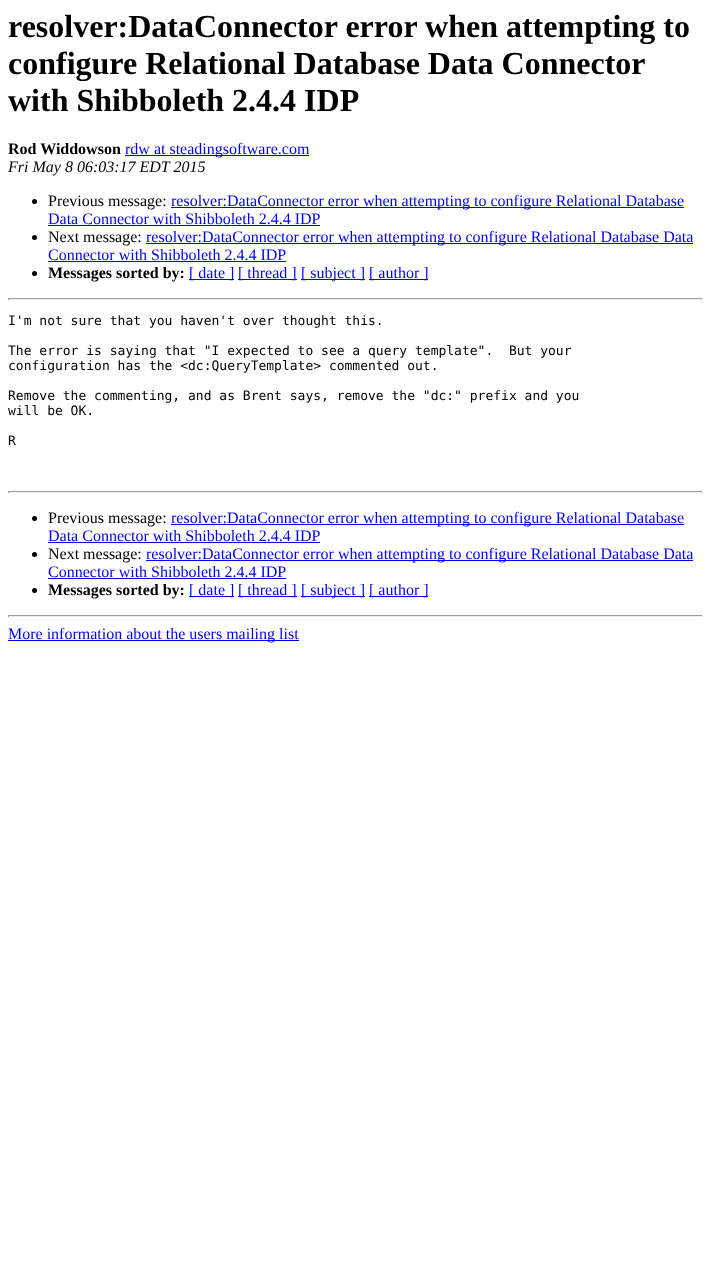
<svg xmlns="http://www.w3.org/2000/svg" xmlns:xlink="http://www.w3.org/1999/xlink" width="711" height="1262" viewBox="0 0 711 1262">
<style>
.cls-1{font:bold 32px Liberation Serif;fill:#000000}
.cls-2{font:bold 16px Liberation Serif;fill:#000000}
.cls-3{font:16px Liberation Serif;fill:#0000ee}
.cls-4{font:italic 16px Liberation Serif;fill:#000000}
.cls-5{font:16px Liberation Serif;fill:#000000}
.cls-6{font:13px DejaVu Sans Mono;fill:#000000}
</style>
<rect width="100%" height="100%" fill="#ffffff"/>
<rect fill="#0000ee" x="125" y="155" width="184" height="1"/>
<circle fill="#000000" cx="34.5" cy="201.5" r="2.5"/>
<rect fill="#0000ee" x="171" y="207" width="513" height="1"/>
<rect fill="#0000ee" x="48" y="225" width="272" height="1"/>
<circle fill="#000000" cx="34.5" cy="237.5" r="2.5"/>
<rect fill="#0000ee" x="146" y="243" width="547" height="1"/>
<rect fill="#0000ee" x="48" y="261" width="238" height="1"/>
<circle fill="#000000" cx="34.5" cy="273.5" r="2.5"/>
<rect fill="#0000ee" x="189" y="279" width="45" height="1"/>
<rect fill="#0000ee" x="238" y="279" width="59" height="1"/>
<rect fill="#0000ee" x="301" y="279" width="64" height="1"/>
<rect fill="#0000ee" x="369" y="279" width="59" height="1"/>
<rect fill="#9f9f9f" x="8" y="298" width="695" height="1"/>
<rect fill="#eeeeee" x="702" y="298" width="1" height="2"/>
<rect fill="#eeeeee" x="8" y="299" width="695" height="1"/>
<rect fill="#9f9f9f" x="8" y="298" width="1" height="2"/>
<rect fill="#9f9f9f" x="8" y="491" width="695" height="1"/>
<rect fill="#eeeeee" x="702" y="491" width="1" height="2"/>
<rect fill="#eeeeee" x="8" y="492" width="695" height="1"/>
<rect fill="#9f9f9f" x="8" y="491" width="1" height="2"/>
<circle fill="#000000" cx="34.5" cy="518.5" r="2.5"/>
<rect fill="#0000ee" x="171" y="524" width="513" height="1"/>
<rect fill="#0000ee" x="48" y="542" width="272" height="1"/>
<circle fill="#000000" cx="34.5" cy="554.5" r="2.5"/>
<rect fill="#0000ee" x="146" y="560" width="547" height="1"/>
<rect fill="#0000ee" x="48" y="578" width="238" height="1"/>
<circle fill="#000000" cx="34.5" cy="590.5" r="2.5"/>
<rect fill="#0000ee" x="189" y="596" width="45" height="1"/>
<rect fill="#0000ee" x="238" y="596" width="59" height="1"/>
<rect fill="#0000ee" x="301" y="596" width="64" height="1"/>
<rect fill="#0000ee" x="369" y="596" width="59" height="1"/>
<rect fill="#9f9f9f" x="8" y="615" width="695" height="1"/>
<rect fill="#eeeeee" x="702" y="615" width="1" height="2"/>
<rect fill="#eeeeee" x="8" y="616" width="695" height="1"/>
<rect fill="#9f9f9f" x="8" y="615" width="1" height="2"/>
<rect fill="#0000ee" x="8" y="640" width="291" height="1"/>
<text class="cls-1"><tspan x="8" y="37">resolver:DataConnector error when attempting to</tspan><tspan x="8" y="74">configure Relational Database Data Connector</tspan><tspan x="8" y="111">with Shibboleth 2.4.4 IDP</tspan></text>
<text class="cls-2" x="8" y="154">Rod Widdowson</text>
<text class="cls-3" x="125" y="154">rdw at steadingsoftware.com</text>
<text class="cls-4" x="8" y="172">Fri May 8 06:03:17 EDT 2015</text>
<text class="cls-5" x="48" y="206">Previous message:</text>
<text class="cls-3" x="171" y="206">resolver:DataConnector error when attempting to configure Relational Database</text>
<text class="cls-3" x="48" y="224">Data Connector with Shibboleth 2.4.4 IDP</text>
<text class="cls-5" x="48" y="242">Next message:</text>
<text class="cls-3" x="146" y="242">resolver:DataConnector error when attempting to configure Relational Database Data</text>
<text class="cls-3" x="48" y="260">Connector with Shibboleth 2.4.4 IDP</text>
<text class="cls-2" x="48" y="278">Messages sorted by:</text>
<text class="cls-3" x="189" y="278">[ date ]</text>
<text class="cls-3" x="238" y="278">[ thread ]</text>
<text class="cls-3" x="301" y="278">[ subject ]</text>
<text class="cls-3" x="369" y="278">[ author ]</text>
<text class="cls-6" x="8" y="325">I'm not sure that you haven't over thought this.</text>
<text class="cls-6" xml:space="preserve"><tspan x="8" y="355">The error is saying that "I expected to see a query template".  But your</tspan><tspan x="8" y="370">configuration has the &lt;dc:QueryTemplate&gt; commented out.</tspan></text>
<text class="cls-6"><tspan x="8" y="400">Remove the commenting, and as Brent says, remove the "dc:" prefix and you</tspan><tspan x="8" y="415">will be OK.</tspan></text>
<text class="cls-6" x="8" y="445">R</text>
<text class="cls-5" x="48" y="523">Previous message:</text>
<text class="cls-3" x="171" y="523">resolver:DataConnector error when attempting to configure Relational Database</text>
<text class="cls-3" x="48" y="541">Data Connector with Shibboleth 2.4.4 IDP</text>
<text class="cls-5" x="48" y="559">Next message:</text>
<text class="cls-3" x="146" y="559">resolver:DataConnector error when attempting to configure Relational Database Data</text>
<text class="cls-3" x="48" y="577">Connector with Shibboleth 2.4.4 IDP</text>
<text class="cls-2" x="48" y="595">Messages sorted by:</text>
<text class="cls-3" x="189" y="595">[ date ]</text>
<text class="cls-3" x="238" y="595">[ thread ]</text>
<text class="cls-3" x="301" y="595">[ subject ]</text>
<text class="cls-3" x="369" y="595">[ author ]</text>
<text class="cls-3" x="8" y="639">More information about the users mailing list</text>
</svg>
